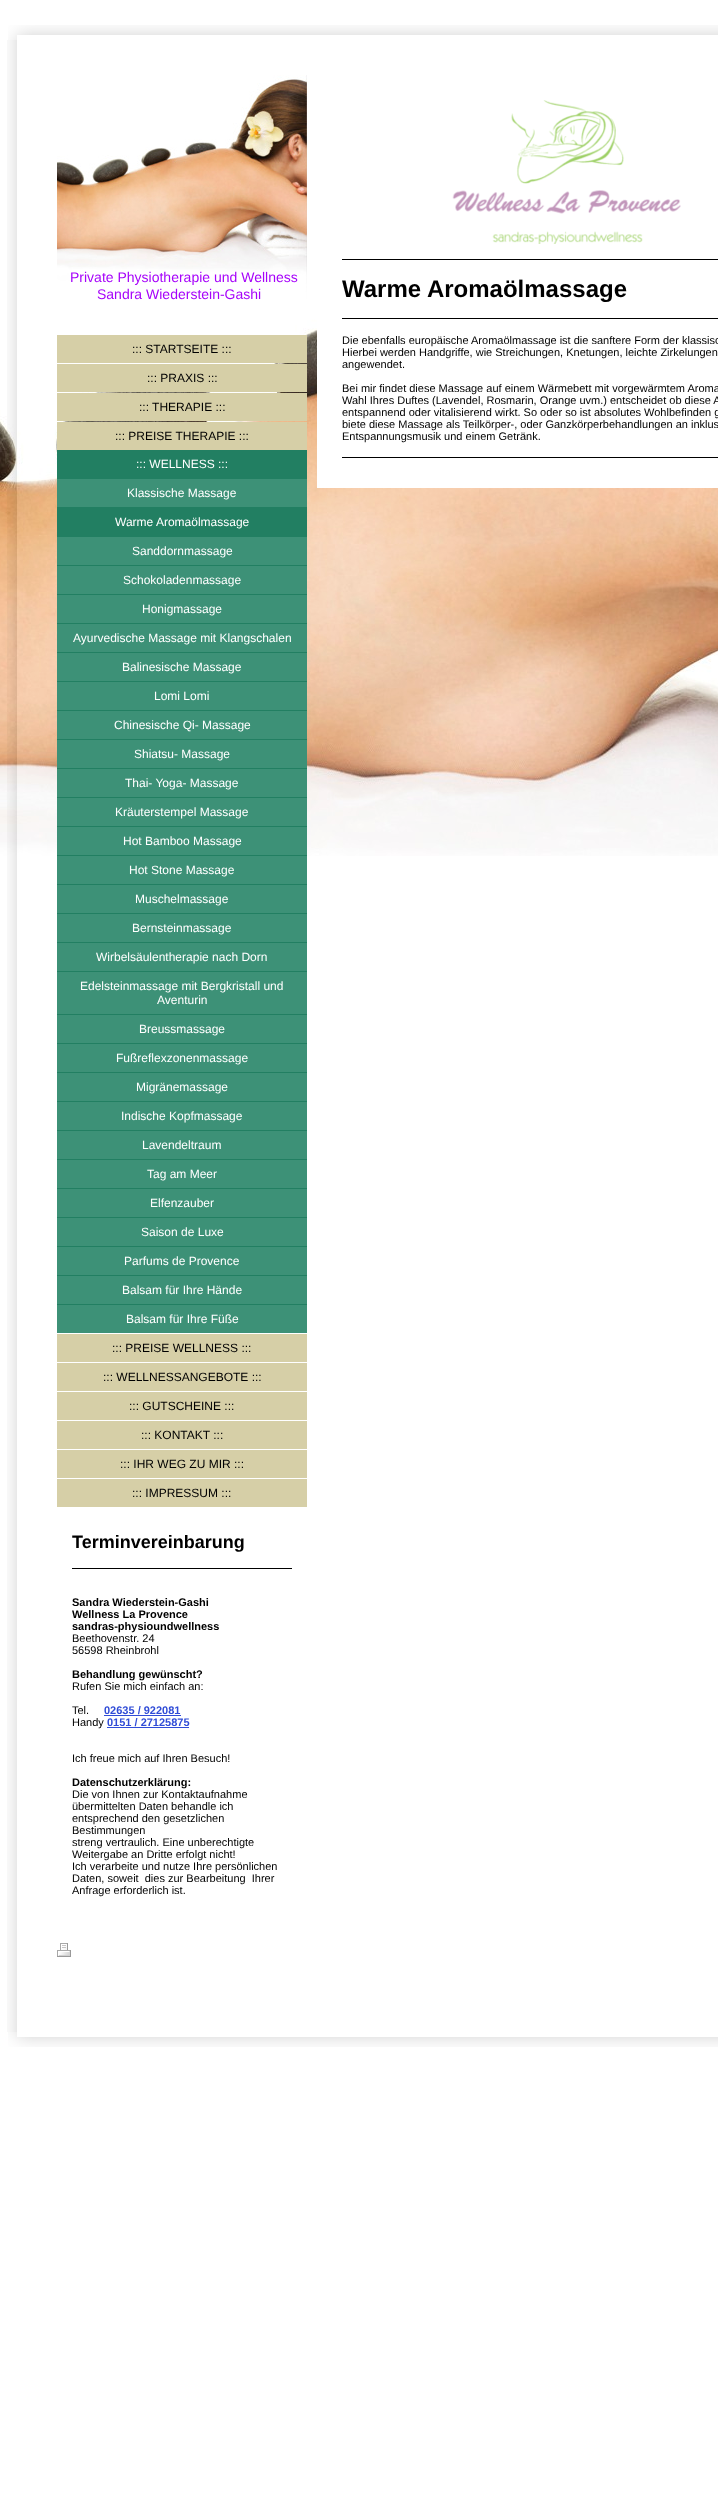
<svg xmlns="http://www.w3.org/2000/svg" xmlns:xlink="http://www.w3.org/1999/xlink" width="718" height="2511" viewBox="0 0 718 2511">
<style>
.cls-1{font:14px Liberation Sans;fill:#a603fa}
.cls-2{font:12px Liberation Sans;fill:#000000}
.cls-3{font:12px Liberation Sans;fill:#ffffff}
.cls-4{font:bold 18px Liberation Sans;fill:#000000}
.cls-5{font:bold 11px Liberation Sans;fill:#000000}
.cls-6{font:11px Liberation Sans;fill:#000000}
.cls-7{font:bold 11px Liberation Sans;fill:#304cd7}
.cls-8{font:bold 24px Liberation Sans;fill:#000000}
</style>
<rect width="100%" height="100%" fill="#ffffff"/>
<image xlink:href="image0.png" x="0" y="199" width="718" height="657"/>
<image xlink:href="image1.png" x="8" y="25" width="710" height="15"/>
<image xlink:href="image2.png" x="7" y="40" width="711" height="1992"/>
<image xlink:href="image3.png" x="57" y="75" width="250" height="250"/>
<rect fill="#d6cfa7" x="57" y="335" width="250" height="28"/>
<rect fill="#d6cfa7" x="57" y="364" width="250" height="28"/>
<rect fill="#d6cfa7" x="57" y="393" width="250" height="28"/>
<rect fill="#d6cfa7" x="57" y="422" width="250" height="28"/>
<rect fill="#227f62" x="57" y="450" width="250" height="29"/>
<rect fill="#3d9177" x="57" y="479" width="250" height="28"/>
<rect fill="#227f62" x="57" y="507" width="250" height="30"/>
<rect fill="#3d9177" x="57" y="537" width="250" height="28"/>
<rect fill="#3d9177" x="57" y="566" width="250" height="28"/>
<rect fill="#227f62" x="57" y="565" width="250" height="1"/>
<rect fill="#3d9177" x="57" y="595" width="250" height="28"/>
<rect fill="#227f62" x="57" y="594" width="250" height="1"/>
<rect fill="#3d9177" x="57" y="624" width="250" height="28"/>
<rect fill="#227f62" x="57" y="623" width="250" height="1"/>
<rect fill="#3d9177" x="57" y="653" width="250" height="28"/>
<rect fill="#227f62" x="57" y="652" width="250" height="1"/>
<rect fill="#3d9177" x="57" y="682" width="250" height="28"/>
<rect fill="#227f62" x="57" y="681" width="250" height="1"/>
<rect fill="#3d9177" x="57" y="711" width="250" height="28"/>
<rect fill="#227f62" x="57" y="710" width="250" height="1"/>
<rect fill="#3d9177" x="57" y="740" width="250" height="28"/>
<rect fill="#227f62" x="57" y="739" width="250" height="1"/>
<rect fill="#3d9177" x="57" y="769" width="250" height="28"/>
<rect fill="#227f62" x="57" y="768" width="250" height="1"/>
<rect fill="#3d9177" x="57" y="798" width="250" height="28"/>
<rect fill="#227f62" x="57" y="797" width="250" height="1"/>
<rect fill="#3d9177" x="57" y="827" width="250" height="28"/>
<rect fill="#227f62" x="57" y="826" width="250" height="1"/>
<rect fill="#3d9177" x="57" y="856" width="250" height="28"/>
<rect fill="#227f62" x="57" y="855" width="250" height="1"/>
<rect fill="#3d9177" x="57" y="885" width="250" height="28"/>
<rect fill="#227f62" x="57" y="884" width="250" height="1"/>
<rect fill="#3d9177" x="57" y="914" width="250" height="28"/>
<rect fill="#227f62" x="57" y="913" width="250" height="1"/>
<rect fill="#3d9177" x="57" y="943" width="250" height="28"/>
<rect fill="#227f62" x="57" y="942" width="250" height="1"/>
<rect fill="#3d9177" x="57" y="972" width="250" height="42"/>
<rect fill="#227f62" x="57" y="971" width="250" height="1"/>
<rect fill="#3d9177" x="57" y="1015" width="250" height="28"/>
<rect fill="#227f62" x="57" y="1014" width="250" height="1"/>
<rect fill="#3d9177" x="57" y="1044" width="250" height="28"/>
<rect fill="#227f62" x="57" y="1043" width="250" height="1"/>
<rect fill="#3d9177" x="57" y="1073" width="250" height="28"/>
<rect fill="#227f62" x="57" y="1072" width="250" height="1"/>
<rect fill="#3d9177" x="57" y="1102" width="250" height="28"/>
<rect fill="#227f62" x="57" y="1101" width="250" height="1"/>
<rect fill="#3d9177" x="57" y="1131" width="250" height="28"/>
<rect fill="#227f62" x="57" y="1130" width="250" height="1"/>
<rect fill="#3d9177" x="57" y="1160" width="250" height="28"/>
<rect fill="#227f62" x="57" y="1159" width="250" height="1"/>
<rect fill="#3d9177" x="57" y="1189" width="250" height="28"/>
<rect fill="#227f62" x="57" y="1188" width="250" height="1"/>
<rect fill="#3d9177" x="57" y="1218" width="250" height="28"/>
<rect fill="#227f62" x="57" y="1217" width="250" height="1"/>
<rect fill="#3d9177" x="57" y="1247" width="250" height="28"/>
<rect fill="#227f62" x="57" y="1246" width="250" height="1"/>
<rect fill="#3d9177" x="57" y="1276" width="250" height="28"/>
<rect fill="#227f62" x="57" y="1275" width="250" height="1"/>
<rect fill="#3d9177" x="57" y="1305" width="250" height="28"/>
<rect fill="#227f62" x="57" y="1304" width="250" height="1"/>
<rect fill="#d6cfa7" x="57" y="1334" width="250" height="28"/>
<rect fill="#d6cfa7" x="57" y="1363" width="250" height="28"/>
<rect fill="#d6cfa7" x="57" y="1392" width="250" height="28"/>
<rect fill="#d6cfa7" x="57" y="1421" width="250" height="28"/>
<rect fill="#d6cfa7" x="57" y="1450" width="250" height="28"/>
<rect fill="#d6cfa7" x="57" y="1479" width="250" height="28"/>
<rect fill="#000000" x="72" y="1568" width="220" height="1"/>
<rect fill="#304cd7" x="104" y="1715" width="77" height="1"/>
<rect fill="#304cd7" x="107" y="1727" width="82" height="1"/>
<rect fill="#ffffff" x="317" y="199" width="401" height="289"/>
<image xlink:href="image4.png" x="452" y="100" width="229" height="144"/>
<rect fill="#000000" x="342" y="259" width="376" height="1"/>
<rect fill="#000000" x="342" y="318" width="376" height="1"/>
<rect fill="#000000" x="342" y="457" width="376" height="1"/>
<image xlink:href="image5.png" x="57" y="1943" width="14" height="14"/>
<image xlink:href="image6.png" x="8" y="2032" width="710" height="15"/>
<text class="cls-1" x="70" y="282">Private Physiotherapie und Wellness</text>
<text class="cls-1" x="97" y="299">Sandra Wiederstein-Gashi</text>
<text class="cls-2" x="132" y="353">::: STARTSEITE :::</text>
<text class="cls-2" x="147" y="382">::: PRAXIS :::</text>
<text class="cls-2" x="139" y="411">::: THERAPIE :::</text>
<text class="cls-2" x="115" y="440">::: PREISE THERAPIE :::</text>
<text class="cls-3" x="136" y="468">::: WELLNESS :::</text>
<text class="cls-3" x="127" y="497">Klassische Massage</text>
<text class="cls-3" x="115" y="526">Warme Aromaölmassage</text>
<text class="cls-3" x="132" y="555">Sanddornmassage</text>
<text class="cls-3" x="123" y="584">Schokoladenmassage</text>
<text class="cls-3" x="142" y="613">Honigmassage</text>
<text class="cls-3" x="73" y="642">Ayurvedische Massage mit Klangschalen</text>
<text class="cls-3" x="122" y="671">Balinesische Massage</text>
<text class="cls-3" x="154" y="700">Lomi Lomi</text>
<text class="cls-3" x="114" y="729">Chinesische Qi- Massage</text>
<text class="cls-3" x="134" y="758">Shiatsu- Massage</text>
<text class="cls-3" x="125" y="787">Thai- Yoga- Massage</text>
<text class="cls-3" x="115" y="816">Kräuterstempel Massage</text>
<text class="cls-3" x="123" y="845">Hot Bamboo Massage</text>
<text class="cls-3" x="129" y="874">Hot Stone Massage</text>
<text class="cls-3" x="135" y="903">Muschelmassage</text>
<text class="cls-3" x="132" y="932">Bernsteinmassage</text>
<text class="cls-3" x="96" y="961">Wirbelsäulentherapie nach Dorn</text>
<text class="cls-3" x="80" y="990">Edelsteinmassage mit Bergkristall und</text>
<text class="cls-3" x="157" y="1004">Aventurin</text>
<text class="cls-3" x="139" y="1033">Breussmassage</text>
<text class="cls-3" x="116" y="1062">Fußreflexzonenmassage</text>
<text class="cls-3" x="136" y="1091">Migränemassage</text>
<text class="cls-3" x="121" y="1120">Indische Kopfmassage</text>
<text class="cls-3" x="142" y="1149">Lavendeltraum</text>
<text class="cls-3" x="147" y="1178">Tag am Meer</text>
<text class="cls-3" x="150" y="1207">Elfenzauber</text>
<text class="cls-3" x="141" y="1236">Saison de Luxe</text>
<text class="cls-3" x="124" y="1265">Parfums de Provence</text>
<text class="cls-3" x="122" y="1294">Balsam für Ihre Hände</text>
<text class="cls-3" x="126" y="1323">Balsam für Ihre Füße</text>
<text class="cls-2" x="112" y="1352">::: PREISE WELLNESS :::</text>
<text class="cls-2" x="103" y="1381">::: WELLNESSANGEBOTE :::</text>
<text class="cls-2" x="129" y="1410">::: GUTSCHEINE :::</text>
<text class="cls-2" x="141" y="1439">::: KONTAKT :::</text>
<text class="cls-2" x="120" y="1468">::: IHR WEG ZU MIR :::</text>
<text class="cls-2" x="132" y="1497">::: IMPRESSUM :::</text>
<text class="cls-4" x="72" y="1548">Terminvereinbarung</text>
<text class="cls-5"><tspan x="72" y="1606">Sandra Wiederstein-Gashi</tspan><tspan x="72" y="1618">Wellness La Provence</tspan><tspan x="72" y="1630">sandras-physioundwellness</tspan></text>
<text class="cls-6"><tspan x="72" y="1642">Beethovenstr. 24</tspan><tspan x="72" y="1654">56598 Rheinbrohl</tspan></text>
<text class="cls-5" x="72" y="1678">Behandlung gewünscht?</text>
<text class="cls-6" x="72" y="1690">Rufen Sie mich einfach an:</text>
<text class="cls-6" x="72" y="1714">Tel.</text>
<text class="cls-7" x="104" y="1714">02635 / 922081</text>
<text class="cls-6" x="72" y="1726">Handy</text>
<text class="cls-7" x="107" y="1726">0151 / 27125875</text>
<text class="cls-6" x="72" y="1762">Ich freue mich auf Ihren Besuch!</text>
<text class="cls-5" x="72" y="1786">Datenschutzerklärung:</text>
<text class="cls-6" xml:space="preserve"><tspan x="72" y="1798">Die von Ihnen zur Kontaktaufnahme</tspan><tspan x="72" y="1810">übermittelten Daten behandle ich</tspan><tspan x="72" y="1822">entsprechend den gesetzlichen</tspan><tspan x="72" y="1834">Bestimmungen</tspan><tspan x="72" y="1846">streng vertraulich. Eine unberechtigte</tspan><tspan x="72" y="1858">Weitergabe an Dritte erfolgt nicht!</tspan><tspan x="72" y="1870">Ich verarbeite und nutze Ihre persönlichen</tspan><tspan x="72" y="1882">Daten, soweit  dies zur Bearbeitung  Ihrer</tspan><tspan x="72" y="1894">Anfrage erforderlich ist.</tspan></text>
<text class="cls-8" x="342" y="297">Warme Aromaölmassage</text>
<text class="cls-6"><tspan x="342" y="344">Die ebenfalls europäische Aromaölmassage ist die sanftere Form der klassisc</tspan><tspan x="342" y="356">Hierbei werden Handgriffe, wie Streichungen, Knetungen, leichte Zirkelungen</tspan><tspan x="342" y="368">angewendet.</tspan></text>
<text class="cls-6"><tspan x="342" y="392">Bei mir findet diese Massage auf einem Wärmebett mit vorgewärmtem Aroma</tspan><tspan x="342" y="404">Wahl Ihres Duftes (Lavendel, Rosmarin, Orange uvm.) entscheidet ob diese A</tspan><tspan x="342" y="416">entspannend oder vitalisierend wirkt. So oder so ist absolutes Wohlbefinden g</tspan><tspan x="342" y="428">biete diese Massage als Teilkörper-, oder Ganzkörperbehandlungen an inklus</tspan><tspan x="342" y="440">Entspannungsmusik und einem Getränk.</tspan></text>
</svg>
